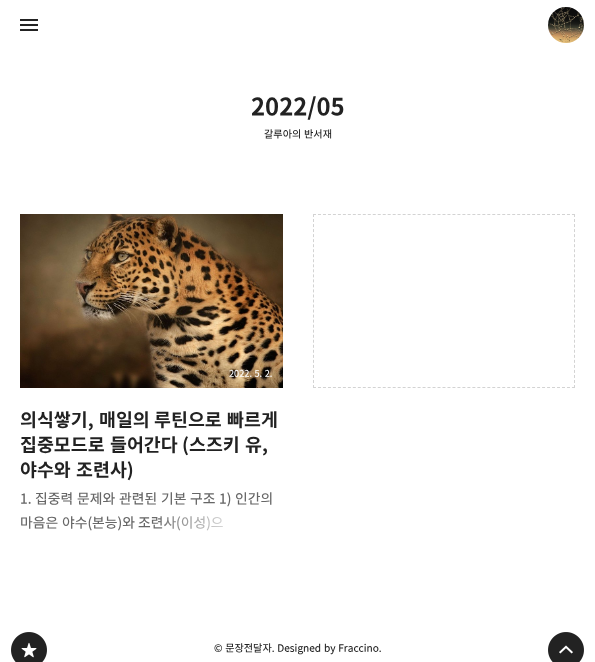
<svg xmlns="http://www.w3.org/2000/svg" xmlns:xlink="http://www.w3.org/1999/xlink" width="595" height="662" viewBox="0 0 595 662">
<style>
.cls-1{font:bold 26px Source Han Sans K;fill:#222222}
.cls-2{font:11px Source Han Sans K;fill:#222222}
.cls-3{font:10px Source Han Sans K;fill:#ffffff}
.cls-4{font:bold 20px Source Han Sans K;fill:#222222}
.cls-5{font:15px Source Han Sans K;fill:#666666}
</style>
<defs>
<linearGradient id="g1" gradientUnits="userSpaceOnUse" x1="151" y1="523" x2="283" y2="523"><stop offset="0" stop-color="#ffffff" stop-opacity="0"/><stop offset="0.75" stop-color="#ffffff"/></linearGradient>
</defs>
<rect width="100%" height="100%" fill="#ffffff"/>
<image xlink:href="image0.png" x="20" y="19" width="18" height="12"/>
<image xlink:href="image1.png" x="548" y="7" width="36" height="36"/>
<path fill="none" stroke="#d3d3d3" stroke-dasharray="3 1.98" d="M313 214.5H575"/>
<path fill="none" stroke="#d3d3d3" stroke-dasharray="3 2.03" d="M574.5 214V388"/>
<path fill="none" stroke="#d3d3d3" stroke-dasharray="3 1.98" d="M313 387.5H575"/>
<path fill="none" stroke="#d3d3d3" stroke-dasharray="3 2.03" d="M313.5 214V388"/>
<image xlink:href="image2.png" x="20" y="214" width="263" height="174"/>
<image xlink:href="image3.png" x="11" y="632" width="36" height="30"/>
<image xlink:href="image4.png" x="548" y="632" width="36" height="30"/>
<text class="cls-1" x="251" y="116">2022/05</text>
<text class="cls-2" x="264" y="138">갈루아의 반서재</text>
<text class="cls-3" x="229" y="377">2022. 5. 2.</text>
<text class="cls-4" x="20" y="427">의식쌓기,</text>
<text class="cls-4" x="99" y="427">매일의</text>
<text class="cls-4" x="154" y="427">루틴으로</text>
<text class="cls-4" x="227" y="427">빠르게</text>
<text class="cls-4" x="20" y="452">집중모드로</text>
<text class="cls-4" x="110" y="452">들어간다</text>
<text class="cls-4" x="182" y="452">(스즈키</text>
<text class="cls-4" x="245" y="452">유,</text>
<text class="cls-4" x="20" y="477">야수와</text>
<text class="cls-4" x="76" y="477">조련사)</text>
<text class="cls-5" x="20" y="504">1.</text>
<text class="cls-5" x="35" y="504">집중력</text>
<text class="cls-5" x="77" y="504">문제와</text>
<text class="cls-5" x="119" y="504">관련된</text>
<text class="cls-5" x="161" y="504">기본</text>
<text class="cls-5" x="190" y="504">구조</text>
<text class="cls-5" x="219" y="504">1)</text>
<text class="cls-5" x="235" y="504">인간의</text>
<text class="cls-5" x="20" y="528">마음은</text>
<text class="cls-5" x="62" y="528">야수(본능)와</text>
<text class="cls-5" x="138" y="528">조련사(이성)으</text>
<rect fill="url(#g1)" x="153" y="516" width="71" height="15"/>
<text class="cls-2" x="214" y="652">© 문장전달자. Designed by Fraccino.</text>
</svg>
